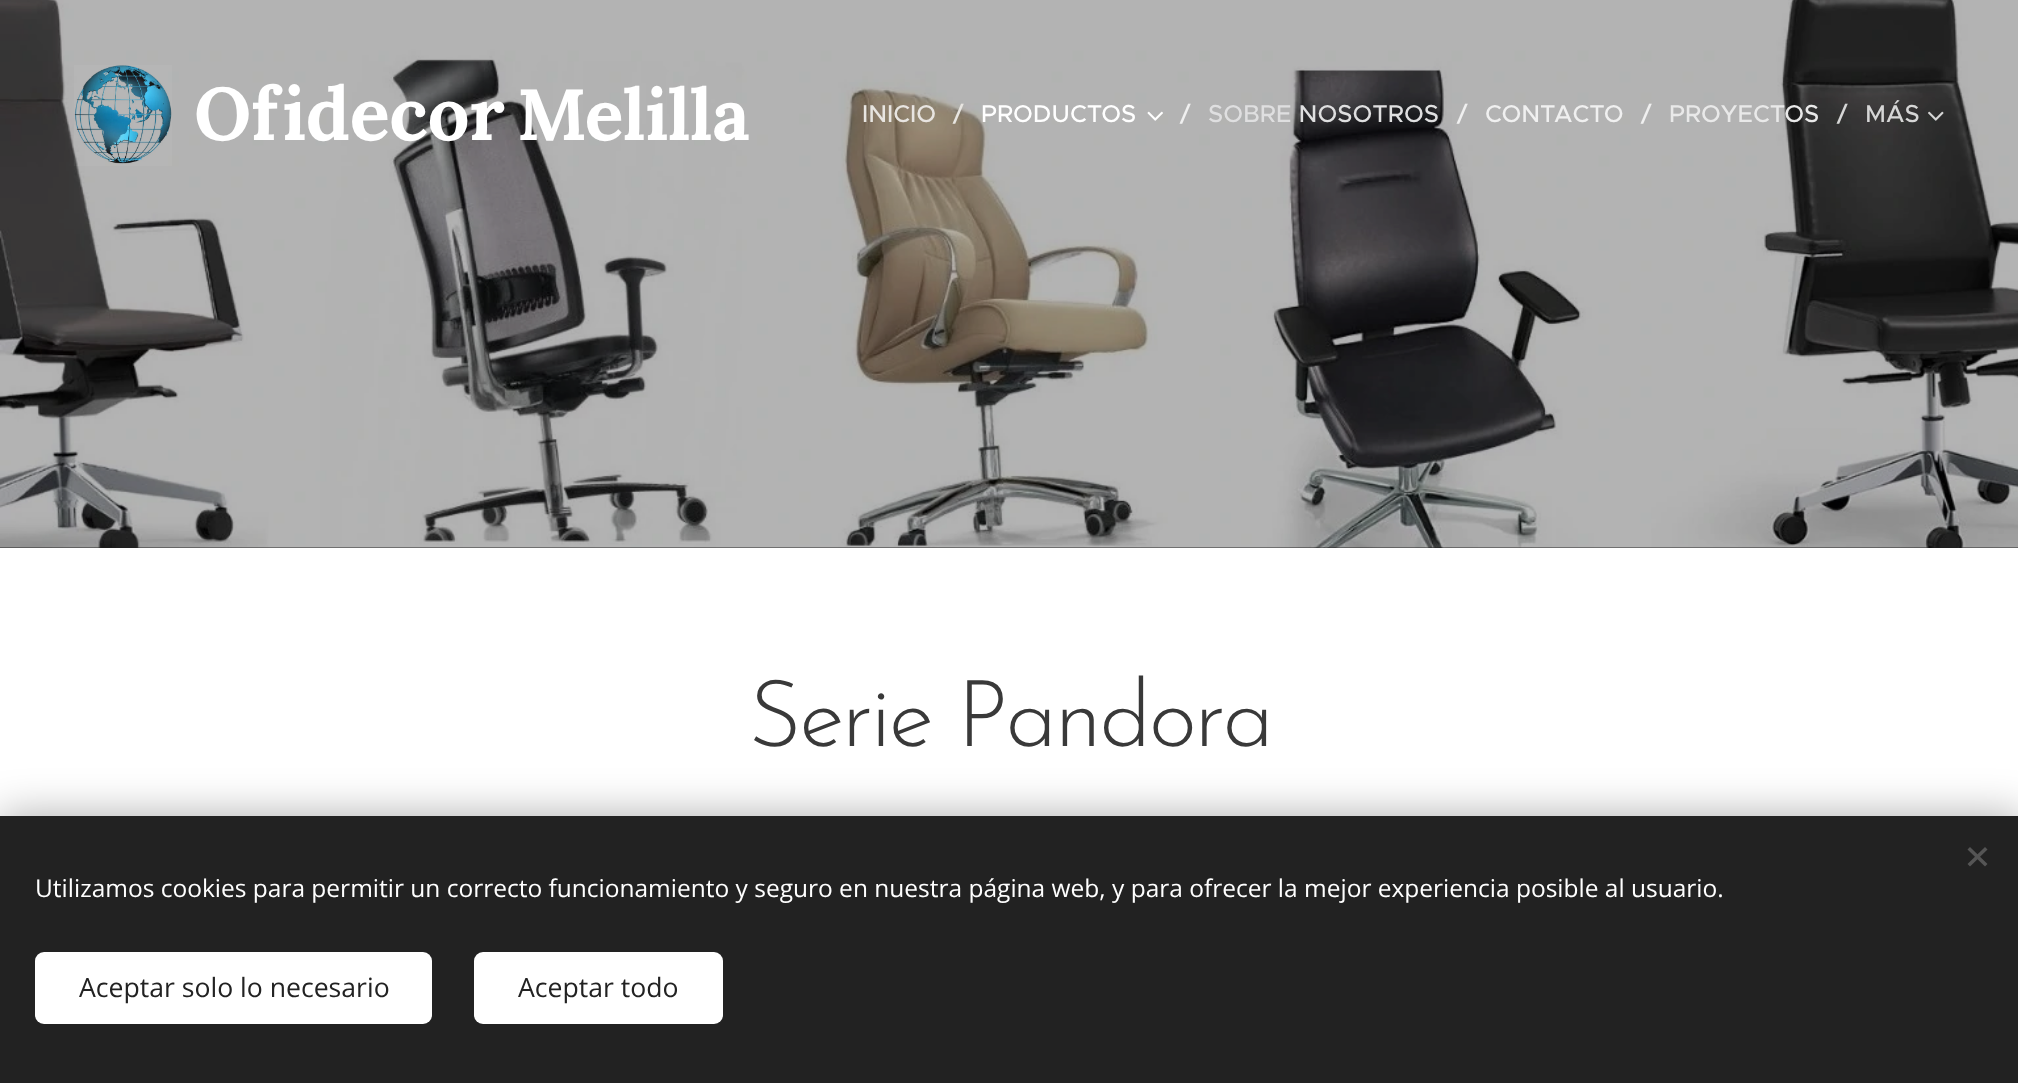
<svg xmlns="http://www.w3.org/2000/svg" xmlns:xlink="http://www.w3.org/1999/xlink" width="2018" height="1083" viewBox="0 0 2018 1083">
<style>
.cls-1{font:bold 74.5px Lora;letter-spacing:-0.5px;fill:#ffffff}
.cls-2{font:bold 72px Lora;letter-spacing:-0.5px;fill:#ffffff}
.cls-3{font:500 24.5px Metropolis;fill:#e8e5e1}
.cls-4{font:500 24.5px Metropolis;fill:#ffffff}
.cls-5{font:500 24.5px Metropolis;fill:#f0f0f0}
.cls-6{font:500 24.5px Metropolis;fill:#dfdfe0}
.cls-7{font:500 24.5px Metropolis;fill:#e9e9e9}
.cls-8{font:500 24.5px Metropolis;fill:#d6d6d6}
.cls-9{font:300 92.75px Josefin Sans;letter-spacing:-2.75px;fill:#393939}
.cls-10{font:24.5px Open Sans;fill:#ffffff}
.cls-11{font:26.6px Open Sans;fill:#222222}
</style>
<rect width="100%" height="100%" fill="#ffffff"/>
<rect fill="#1b1b1b" x="0" y="547" width="2018" height="1"/>
<image xlink:href="image3.png" x="0" y="0" width="2018" height="548"/>
<image xlink:href="image0.png" x="74" y="65" width="98" height="101"/>
<image xlink:href="image1.png" x="1147" y="111" width="16" height="10"/>
<image xlink:href="image2.png" x="1928" y="111" width="16" height="10"/>
<rect fill="#000000" fill-opacity="0.33" filter="blur(22px)" x="0" y="816" width="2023" height="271"/>
<rect fill="#222222" x="0" y="816" width="2018" height="267"/>
<path fill="#555555" d="M1967.5 864L1985 847L1987.5 849.5L1970 866.5Z"/>
<path fill="#555555" d="M1970 847L1987.5 864L1985 866.5L1967.5 849.5Z"/>
<rect fill="#ffffff" x="35" y="952" width="397" height="72" rx="9"/>
<rect fill="#ffffff" x="474" y="952" width="249" height="72" rx="9"/>
<text class="cls-1" x="194" y="140">Ofidecor</text>
<text class="cls-2" x="517" y="140">Melilla</text>
<text class="cls-3" x="862" y="122">INICIO</text>
<text class="cls-3" x="953" y="122">/</text>
<text class="cls-4" x="981" y="122">PRODUCTOS</text>
<text class="cls-5" x="1180" y="122">/</text>
<text class="cls-6" x="1208" y="122">SOBRE NOSOTROS</text>
<text class="cls-5" x="1457" y="122">/</text>
<text class="cls-5" x="1485" y="122">CONTACTO</text>
<text class="cls-5" x="1641" y="122">/</text>
<text class="cls-7" x="1669" y="122">PROYECTOS</text>
<text class="cls-8" x="1837" y="122">/</text>
<text class="cls-8" x="1865" y="122">MÁS</text>
<text class="cls-9" x="748" y="746">Serie Pandora</text>
<text class="cls-10" x="35" y="897">Utilizamos cookies para permitir un correcto funcionamiento y seguro en nuestra página web, y para ofrecer la mejor experiencia posible al usuario.</text>
<text class="cls-11" x="79" y="997">Aceptar solo lo necesario</text>
<text class="cls-11" x="518" y="997">Aceptar todo</text>
</svg>
